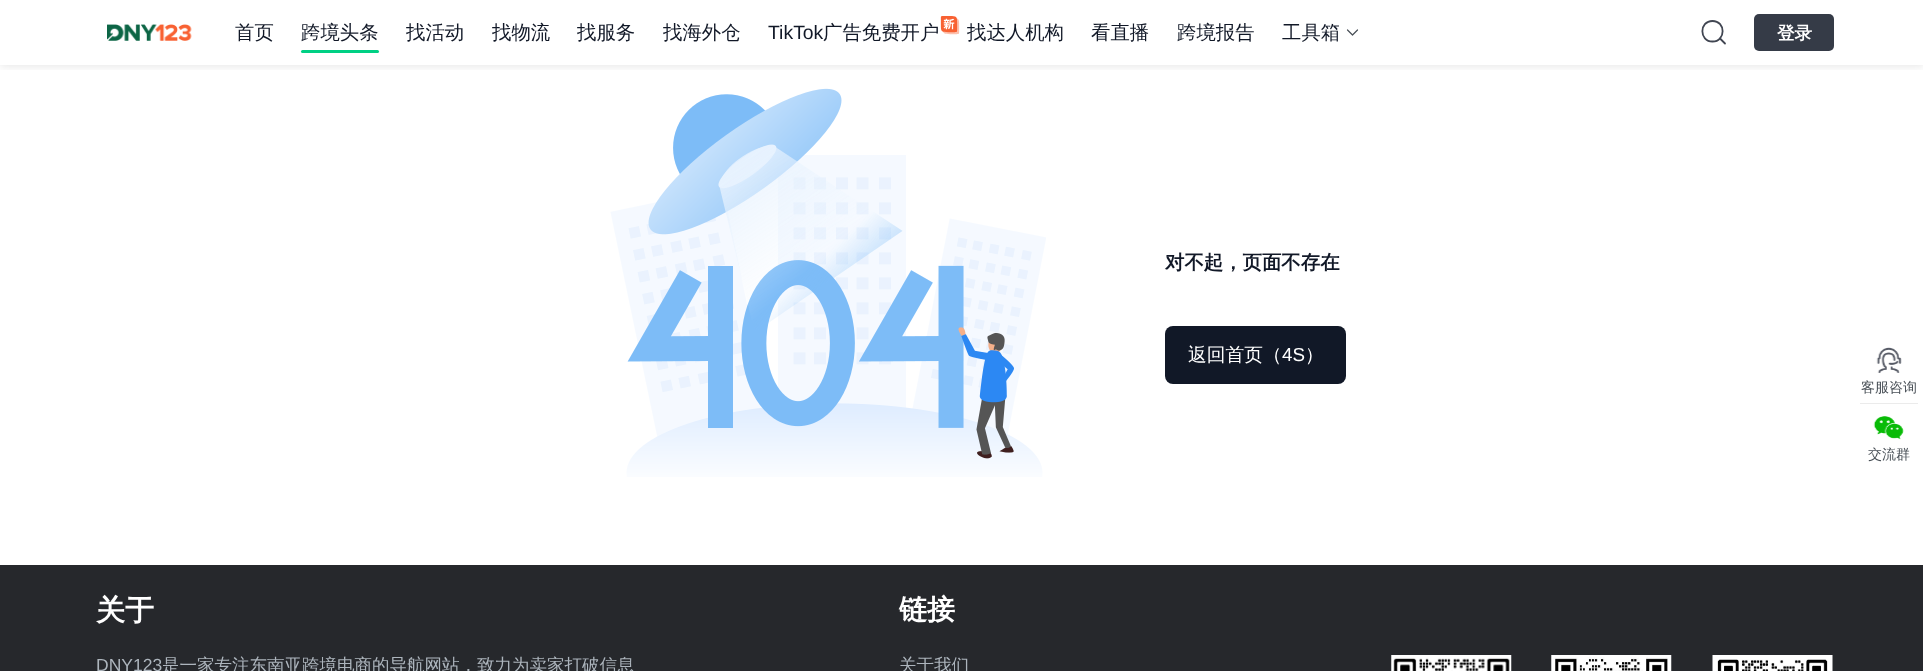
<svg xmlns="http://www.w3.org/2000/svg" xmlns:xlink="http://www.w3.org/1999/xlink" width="1923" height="671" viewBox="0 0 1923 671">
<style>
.cls-1{font:500 19.4px WenQuanYi Zen Hei;fill:#111827}
.cls-2{font:19.4px Liberation Sans;fill:#111827}
.cls-3{font:bold 17.5px WenQuanYi Zen Hei;fill:#ffffff}
.cls-4{font:bold 19.4px WenQuanYi Zen Hei;fill:#111827}
.cls-5{font:500 18.75px WenQuanYi Zen Hei;fill:#ffffff}
.cls-6{font:18.75px Liberation Sans;fill:#ffffff}
.cls-7{font:500 14px WenQuanYi Zen Hei;fill:#495057}
.cls-8{font:bold 29px WenQuanYi Zen Hei;fill:#ffffff}
.cls-9{font:17.5px Liberation Sans;fill:#adb5bd}
.cls-10{font:500 17.5px WenQuanYi Zen Hei;fill:#adb5bd}
.cls-11{font:bold 28px WenQuanYi Zen Hei;fill:#ffffff}
</style>
<defs>
<clipPath id="clip1"><rect x="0" y="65" width="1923" height="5"/></clipPath>
</defs>
<rect width="100%" height="100%" fill="#ffffff"/>
<g clip-path="url(#clip1)">
<rect fill="#000000" fill-opacity="0.1" filter="blur(5px)" x="0" y="1" width="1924" height="65"/>
</g>
<image xlink:href="image0.png" x="107" y="24" width="85" height="17"/>
<rect fill="#00d084" x="301" y="50" width="78" height="3" rx="1.5"/>
<image xlink:href="image1.png" x="940" y="16" width="20" height="19"/>
<path fill="none" stroke="#495057" stroke-width="1.2" stroke-linecap="round" stroke-linejoin="round" d="M1357.5 30L1352.5 35L1347.5 30"/>
<path fill="none" stroke="#414652" stroke-width="1.8" stroke-linejoin="round" d="M1712.5 41.5C1726 41.5 1726 21 1712.5 21C1699 21 1699 41.5 1712.5 41.5Z"/>
<path fill="none" stroke="#414652" stroke-width="1.8" stroke-linecap="round" stroke-linejoin="round" d="M1720 38.5L1725 43.5"/>
<rect fill="#353b47" x="1754" y="14" width="80" height="37" rx="5"/>
<image xlink:href="image2.png" x="610" y="88" width="436" height="389"/>
<rect fill="#111827" x="1165" y="326" width="181" height="58" rx="8"/>
<image xlink:href="image3.png" x="1876" y="347" width="26" height="26"/>
<rect fill="#ebebeb" x="1860" y="403" width="58" height="1"/>
<image xlink:href="image4.png" x="1873" y="416" width="31" height="24"/>
<rect fill="#26282c" x="0" y="565" width="1923" height="106"/>
<image xlink:href="image5.png" x="1391" y="655" width="121" height="16"/>
<image xlink:href="image6.png" x="1551" y="655" width="121" height="16"/>
<image xlink:href="image7.png" x="1712" y="655" width="121" height="16"/>
<text class="cls-1" x="235" y="39">首页</text>
<text class="cls-1" x="301" y="39">跨境头条</text>
<text class="cls-1" x="406" y="39">找活动</text>
<text class="cls-1" x="492" y="39">找物流</text>
<text class="cls-1" x="577" y="39">找服务</text>
<text class="cls-1" x="663" y="39">找海外仓</text>
<text class="cls-2" x="768" y="39">TikTok</text>
<text class="cls-1" x="823" y="39">广告免费开户</text>
<text class="cls-1" x="967" y="39">找达人机构</text>
<text class="cls-1" x="1091" y="39">看直播</text>
<text class="cls-1" x="1177" y="39">跨境报告</text>
<text class="cls-1" x="1282" y="39">工具箱</text>
<text class="cls-3" x="1777" y="39">登录</text>
<text class="cls-4" x="1165" y="269">对不起，页面不存在</text>
<text class="cls-5" x="1188" y="361">返回首页（</text>
<text class="cls-6" x="1282" y="361">4S</text>
<text class="cls-5" x="1305" y="361">）</text>
<text class="cls-7" x="1861" y="392">客服咨询</text>
<text class="cls-7" x="1868" y="459">交流群</text>
<text class="cls-8" x="96" y="620">关于</text>
<text class="cls-9" x="96" y="671">DNY123</text>
<text class="cls-10" x="162" y="671">是一家专注东南亚跨境电商的导航网站，致力为卖家打破信息</text>
<text class="cls-11" x="899" y="619">链接</text>
<text class="cls-10" x="899" y="671">关于我们</text>
</svg>
